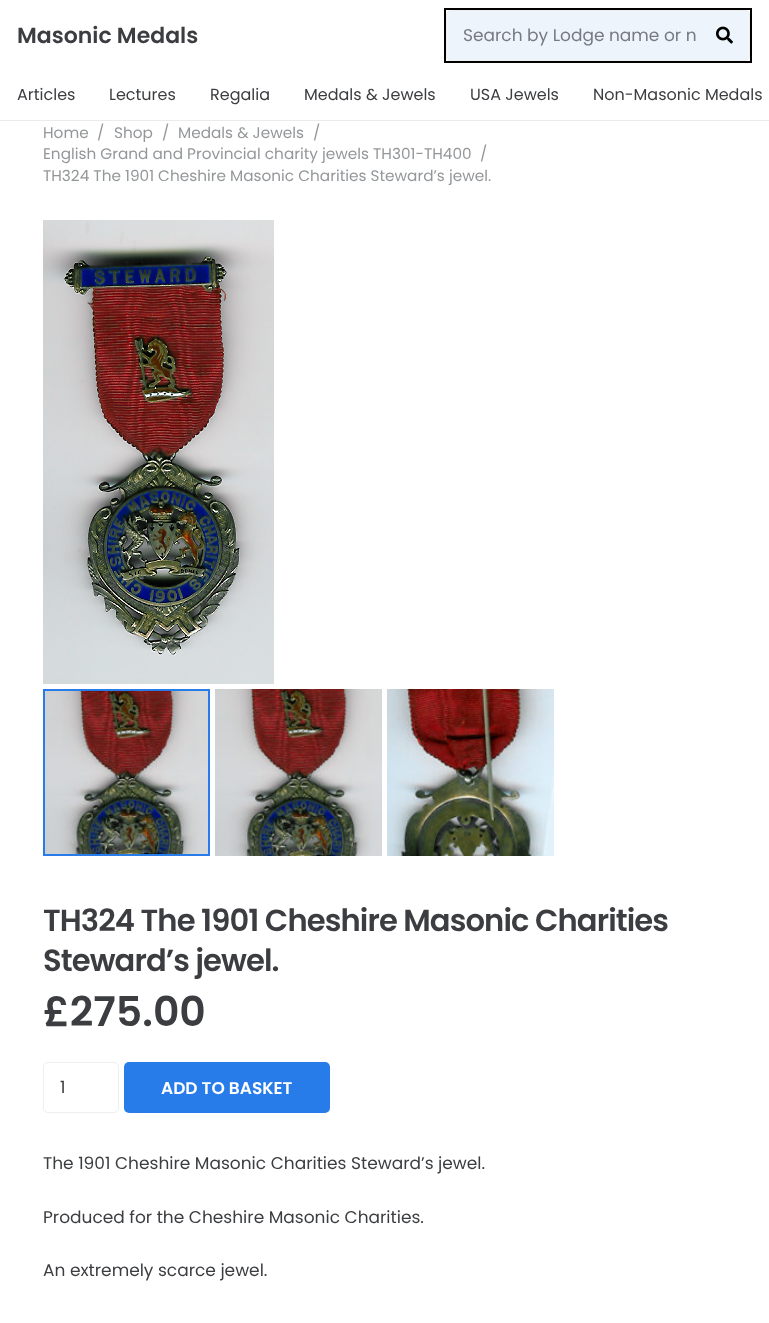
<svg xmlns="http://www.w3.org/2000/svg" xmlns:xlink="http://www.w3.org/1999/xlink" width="769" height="1323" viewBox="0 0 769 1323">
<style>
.cls-1{font:600 22px Poppins;fill:#3b3d40}
.cls-2{font:17px Poppins;fill:#777a7e}
.cls-3{font:16px Poppins;fill:#3b3d40}
.cls-4{font:15.3px Poppins;fill:#949799}
.cls-5{font:600 30.6px Poppins;letter-spacing:-0.9px;fill:#3b3d40}
.cls-6{font:600 41px Poppins;fill:#3b3d40}
.cls-7{font:17px Poppins;fill:#3b3d40}
.cls-8{font:600 17px Poppins;fill:#ffffff}
</style>
<rect width="100%" height="100%" fill="#ffffff"/>
<rect fill="none" stroke="#000000" stroke-width="2" x="445" y="9" width="306" height="53"/>
<rect fill="#edf4fc" stroke="#eeeeee" x="446.5" y="10.5" width="303" height="50" rx="4.5"/>
<image xlink:href="image0.png" x="716" y="26" width="17" height="18"/>
<rect fill="#ebebeb" x="0" y="120" width="769" height="1"/>
<image xlink:href="image1.png" x="43" y="220" width="231" height="464"/>
<rect fill="none" stroke="#277cea" stroke-width="2" x="44" y="690" width="165" height="165"/>
<image xlink:href="image2.png" x="45" y="691" width="163" height="163"/>
<image xlink:href="image3.png" x="215" y="689" width="167" height="167"/>
<image xlink:href="image4.png" x="387" y="689" width="167" height="167"/>
<rect fill="none" stroke="#eeeeee" x="43.5" y="1062.5" width="75" height="50" rx="4.5"/>
<rect fill="#277cea" x="124" y="1062" width="206" height="51" rx="5"/>
<text class="cls-1" x="17" y="43">Masonic Medals</text>
<text class="cls-2" x="463" y="41">Search by Lodge name or n</text>
<text class="cls-3" x="17" y="100">Articles</text>
<text class="cls-3" x="109" y="100">Lectures</text>
<text class="cls-3" x="210" y="100">Regalia</text>
<text class="cls-3" x="304" y="100">Medals &amp; Jewels</text>
<text class="cls-3" x="470" y="100">USA Jewels</text>
<text class="cls-3" x="593" y="100">Non-Masonic Medals</text>
<text class="cls-4" x="43" y="138">Home</text>
<text class="cls-4" x="97" y="138">/</text>
<text class="cls-4" x="114" y="138">Shop</text>
<text class="cls-4" x="162" y="138">/</text>
<text class="cls-4" x="178" y="138">Medals &amp; Jewels</text>
<text class="cls-4" x="313" y="138">/</text>
<text class="cls-4" x="43" y="159">English Grand and Provincial charity jewels TH301-TH400</text>
<text class="cls-4" x="480" y="159">/</text>
<text class="cls-4" x="43" y="181">TH324 The 1901 Cheshire Masonic Charities Steward’s jewel.</text>
<text class="cls-5"><tspan x="43" y="931">TH324 The 1901 Cheshire Masonic Charities</tspan><tspan x="43" y="971">Steward’s jewel.</tspan></text>
<text class="cls-6" x="43" y="1026">£275.00</text>
<text class="cls-7" x="60" y="1093">1</text>
<text class="cls-8" x="161" y="1094">ADD TO BASKET</text>
<text class="cls-7" x="43" y="1169">The 1901 Cheshire Masonic Charities Steward’s jewel.</text>
<text class="cls-7" x="43" y="1223">Produced for the Cheshire Masonic Charities.</text>
<text class="cls-7" x="43" y="1276">An extremely scarce jewel.</text>
</svg>
